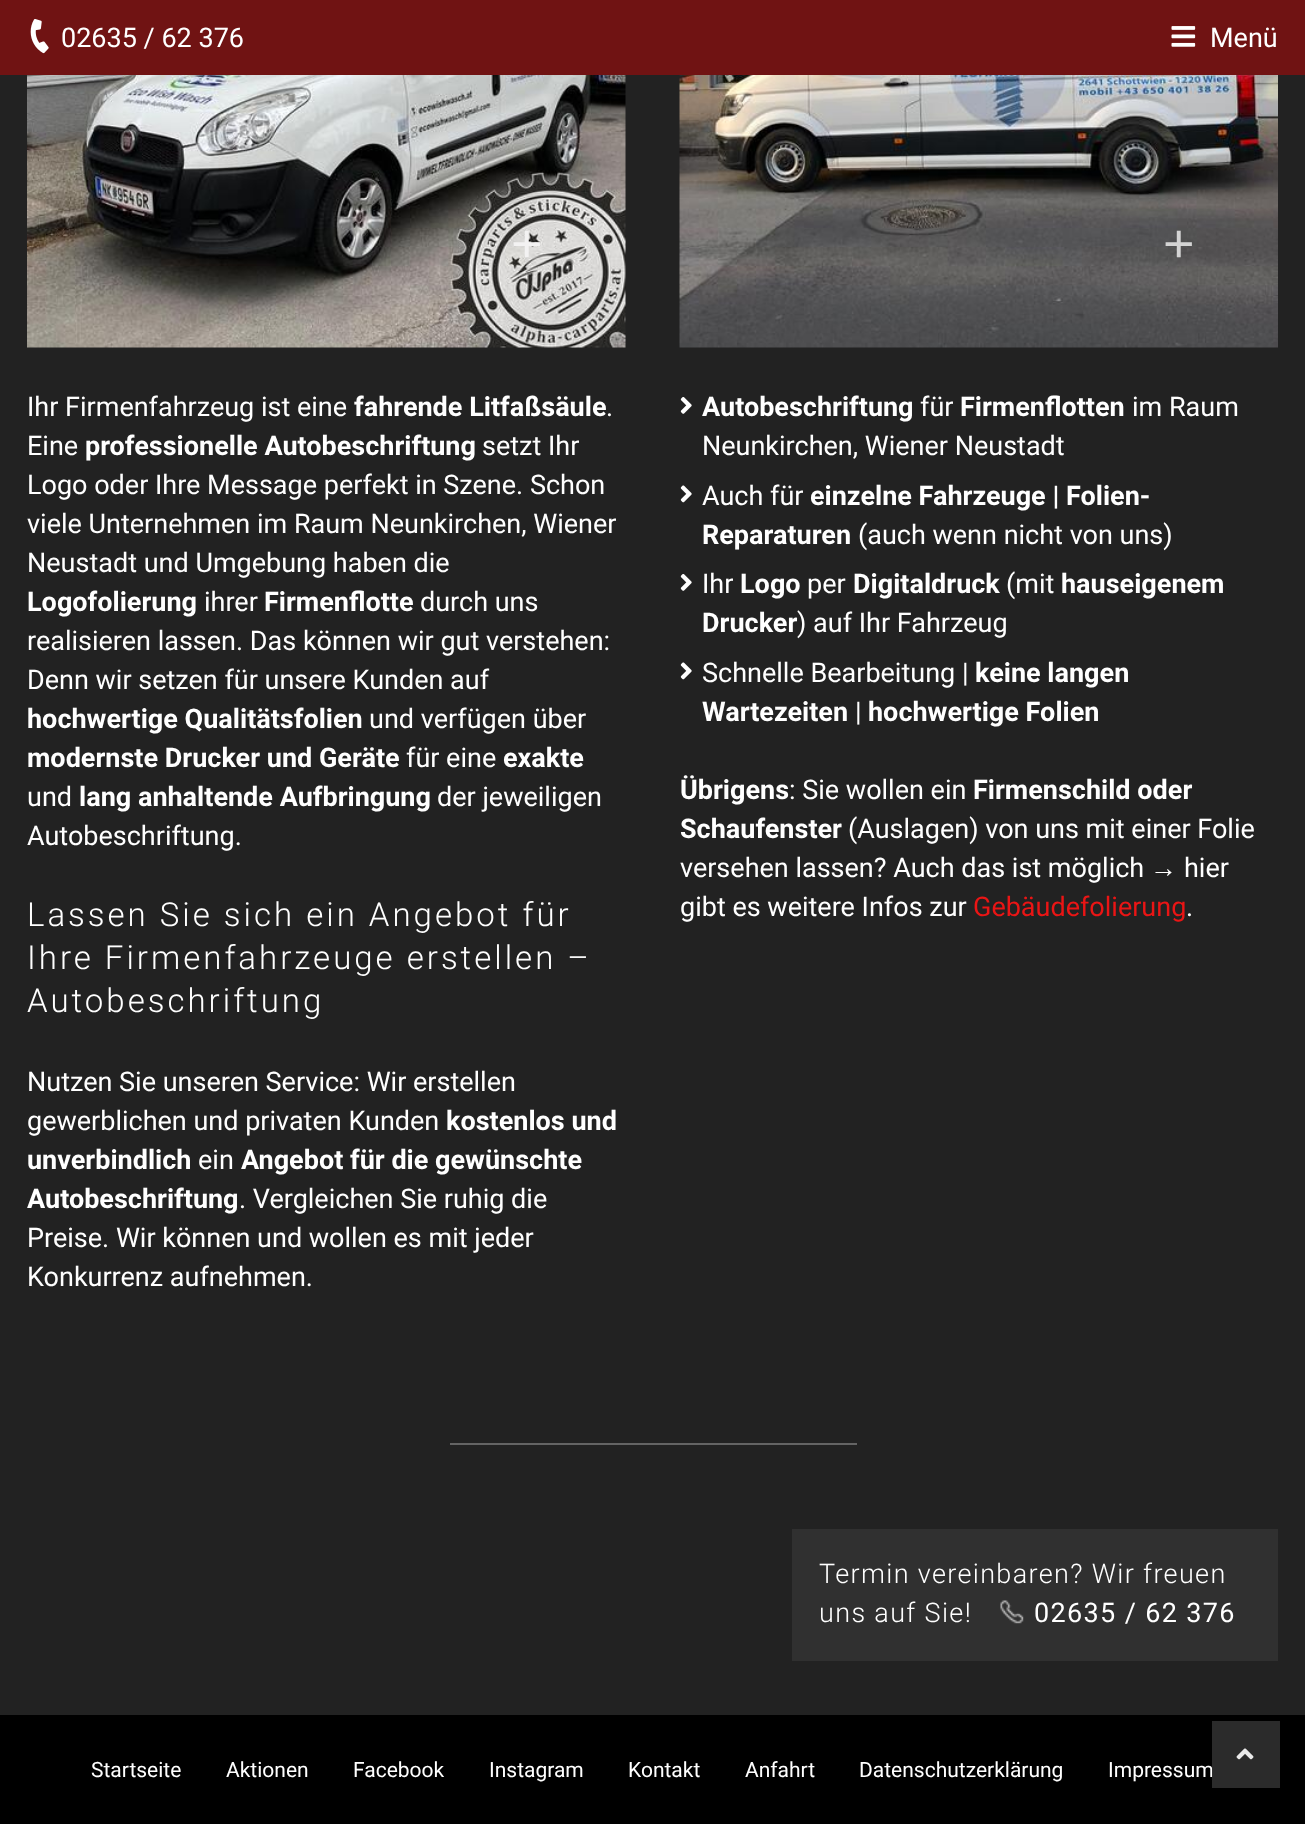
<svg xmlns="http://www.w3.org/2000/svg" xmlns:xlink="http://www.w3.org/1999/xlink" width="1305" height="1824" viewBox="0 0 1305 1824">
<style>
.cls-1{font:27px Roboto;fill:#ffffff}
.cls-2{font:54px Liberation Sans;fill:#f3f2f2}
.cls-3{font:bold 27px Roboto;fill:#ffffff}
.cls-4{font:300 33px Roboto;letter-spacing:3px;fill:#ffffff}
.cls-5{font:54px Liberation Sans;fill:#d4d4d4}
.cls-6{font:27px Liberation Sans;fill:#ffffff}
.cls-7{font:27px Roboto;fill:#ea1515}
.cls-8{font:300 27px Roboto;letter-spacing:1.35px;fill:#ffffff}
.cls-9{font:27px Roboto;letter-spacing:1.35px;fill:#ffffff}
.cls-10{font:21px Roboto;fill:#ffffff}
</style>
<rect width="100%" height="100%" fill="#222222"/>
<rect fill="#701313" x="0" y="0" width="1305" height="75"/>
<image xlink:href="image0.png" x="30" y="19" width="19" height="35"/>
<image xlink:href="image1.png" x="1171" y="26" width="25" height="21"/>
<image xlink:href="image2.png" x="27" y="75" width="599" height="273"/>
<image xlink:href="image3.png" x="679" y="75" width="599" height="273"/>
<image xlink:href="image4.png" x="680" y="397" width="12" height="17"/>
<image xlink:href="image5.png" x="680" y="485" width="12" height="18"/>
<image xlink:href="image4.png" x="680" y="574" width="12" height="17"/>
<image xlink:href="image5.png" x="680" y="662" width="12" height="18"/>
<rect fill="#646464" x="450" y="1443" width="407" height="2"/>
<rect fill="#303030" x="792" y="1529" width="486" height="132"/>
<image xlink:href="image6.png" x="1000" y="1600" width="24" height="24"/>
<rect fill="#000000" x="0" y="1715" width="1305" height="109"/>
<text class="cls-1" x="61" y="47">02635 / 62 376</text>
<text class="cls-1" x="1210" y="47">Menü</text>
<text class="cls-2" x="511" y="262">+</text>
<text class="cls-1" x="27" y="416">Ihr Firmenfahrzeug ist eine</text>
<text class="cls-3" x="354" y="416">fahrende Litfaßsäule</text>
<text class="cls-1" x="606" y="416">.</text>
<text class="cls-1" x="27" y="455">Eine</text>
<text class="cls-3" x="85" y="455">professionelle Autobeschriftung</text>
<text class="cls-1" x="482" y="455">setzt Ihr</text>
<text class="cls-1"><tspan x="27" y="494">Logo oder Ihre Message perfekt in Szene. Schon</tspan><tspan x="27" y="533">viele Unternehmen im Raum Neunkirchen, Wiener</tspan><tspan x="27" y="572">Neustadt und Umgebung haben die</tspan></text>
<text class="cls-3" x="27" y="611">Logofolierung</text>
<text class="cls-1" x="204" y="611">ihrer</text>
<text class="cls-3" x="264" y="611">Firmenflotte</text>
<text class="cls-1" x="420" y="611">durch uns</text>
<text class="cls-1"><tspan x="27" y="650">realisieren lassen. Das können wir gut verstehen:</tspan><tspan x="27" y="689">Denn wir setzen für unsere Kunden auf</tspan></text>
<text class="cls-3" x="27" y="728">hochwertige Qualitätsfolien</text>
<text class="cls-1" x="369" y="728">und verfügen über</text>
<text class="cls-3" x="27" y="767">modernste Drucker und Geräte</text>
<text class="cls-1" x="406" y="767">für eine</text>
<text class="cls-3" x="503" y="767">exakte</text>
<text class="cls-1" x="27" y="806">und</text>
<text class="cls-3" x="79" y="806">lang anhaltende Aufbringung</text>
<text class="cls-1" x="437" y="806">der jeweiligen</text>
<text class="cls-1" x="27" y="845">Autobeschriftung.</text>
<text class="cls-4"><tspan x="27" y="926">Lassen Sie sich ein Angebot für</tspan><tspan x="27" y="969">Ihre Firmenfahrzeuge erstellen –</tspan><tspan x="27" y="1012">Autobeschriftung</tspan></text>
<text class="cls-1"><tspan x="27" y="1091">Nutzen Sie unseren Service: Wir erstellen</tspan><tspan x="27" y="1130">gewerblichen und privaten Kunden</tspan></text>
<text class="cls-3" x="446" y="1130">kostenlos und</text>
<text class="cls-3" x="27" y="1169">unverbindlich</text>
<text class="cls-1" x="198" y="1169">ein</text>
<text class="cls-3" x="241" y="1169">Angebot für die gewünschte</text>
<text class="cls-3" x="27" y="1208">Autobeschriftung</text>
<text class="cls-1" x="239" y="1208">. Vergleichen Sie ruhig die</text>
<text class="cls-1"><tspan x="27" y="1247">Preise. Wir können und wollen es mit jeder</tspan><tspan x="27" y="1286">Konkurrenz aufnehmen.</tspan></text>
<text class="cls-5" x="1163" y="262">+</text>
<text class="cls-3" x="702" y="416">Autobeschriftung</text>
<text class="cls-1" x="920" y="416">für</text>
<text class="cls-3" x="960" y="416">Firmenflotten</text>
<text class="cls-1" x="1132" y="416">im Raum</text>
<text class="cls-1"><tspan x="702" y="455">Neunkirchen, Wiener Neustadt</tspan><tspan x="702" y="505">Auch für</tspan></text>
<text class="cls-3" x="810" y="505">einzelne Fahrzeuge | Folien-</text>
<text class="cls-3" x="702" y="544">Reparaturen</text>
<text class="cls-1" x="858" y="544">(auch wenn nicht von uns)</text>
<text class="cls-1" x="702" y="593">Ihr</text>
<text class="cls-3" x="740" y="593">Logo</text>
<text class="cls-1" x="807" y="593">per</text>
<text class="cls-3" x="853" y="593">Digitaldruck</text>
<text class="cls-1" x="1006" y="593">(mit</text>
<text class="cls-3" x="1061" y="593">hauseigenem</text>
<text class="cls-3" x="702" y="632">Drucker</text>
<text class="cls-1" x="797" y="632">) auf Ihr Fahrzeug</text>
<text class="cls-1" x="702" y="682">Schnelle Bearbeitung |</text>
<text class="cls-3" x="975" y="682">keine langen</text>
<text class="cls-3" x="702" y="721">Wartezeiten</text>
<text class="cls-1" x="855" y="721">|</text>
<text class="cls-3" x="868" y="721">hochwertige Folien</text>
<text class="cls-3" x="680" y="799">Übrigens</text>
<text class="cls-1" x="789" y="799">: Sie wollen ein</text>
<text class="cls-3" x="973" y="799">Firmenschild oder</text>
<text class="cls-3" x="680" y="838">Schaufenster</text>
<text class="cls-1" x="848" y="838">(Auslagen) von uns mit einer Folie</text>
<text class="cls-1" x="680" y="877">versehen lassen? Auch das ist möglich</text>
<text class="cls-6" x="1150" y="877">→</text>
<text class="cls-1" x="1184" y="877">hier</text>
<text class="cls-1" x="680" y="916">gibt es weitere Infos zur</text>
<text class="cls-7" x="973" y="916">Gebäudefolierung</text>
<text class="cls-1" x="1186" y="916">.</text>
<text class="cls-8"><tspan x="819" y="1583">Termin vereinbaren? Wir freuen</tspan><tspan x="819" y="1622">uns auf Sie!</tspan></text>
<text class="cls-9" x="1034" y="1622">02635 / 62 376</text>
<text class="cls-10" x="91" y="1777">Startseite</text>
<text class="cls-10" x="226" y="1777">Aktionen</text>
<text class="cls-10" x="353" y="1777">Facebook</text>
<text class="cls-10" x="489" y="1777">Instagram</text>
<text class="cls-10" x="628" y="1777">Kontakt</text>
<text class="cls-10" x="745" y="1777">Anfahrt</text>
<text class="cls-10" x="859" y="1777">Datenschutzerklärung</text>
<text class="cls-10" x="1108" y="1777">Impressum</text>
<rect fill="#303030" fill-opacity="0.9" x="1212" y="1721" width="68" height="67"/>
<image xlink:href="image7.png" x="1236" y="1748" width="18" height="12"/>
</svg>
